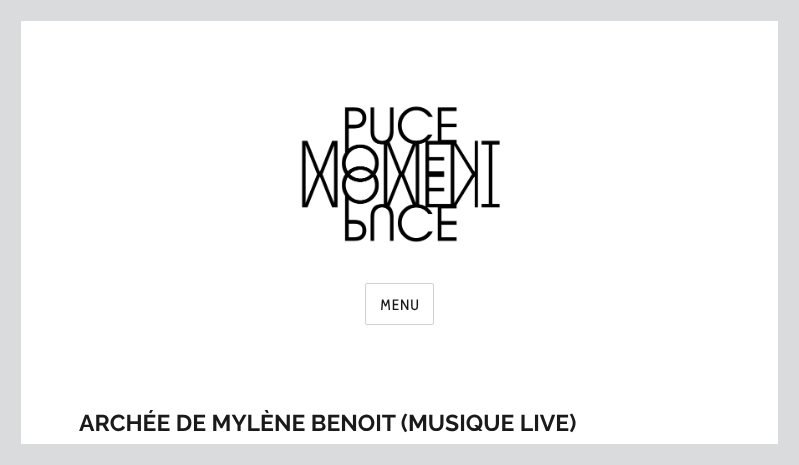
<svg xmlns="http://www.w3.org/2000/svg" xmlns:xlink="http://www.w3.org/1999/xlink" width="799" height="465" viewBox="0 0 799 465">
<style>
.cls-1{font:bold 16px Anaheim;letter-spacing:1px;fill:#1a1a1a}
.cls-2{font:100 23px Raleway;fill:#1a1a1a}
</style>
<rect width="100%" height="100%" fill="#dadbdc"/>
<rect fill="#ffffff" x="21" y="21" width="757" height="423"/>
<image xlink:href="image0.png" x="301" y="106" width="199" height="137"/>
<rect fill="none" stroke="#d1d1d1" x="365.5" y="283.5" width="68" height="41" rx="1.5"/>
<text class="cls-1" x="380" y="310">MENU</text>
<text class="cls-2" x="79" y="431">ARCHÉE DE MYLÈNE BENOIT (MUSIQUE LIVE)</text>
</svg>
